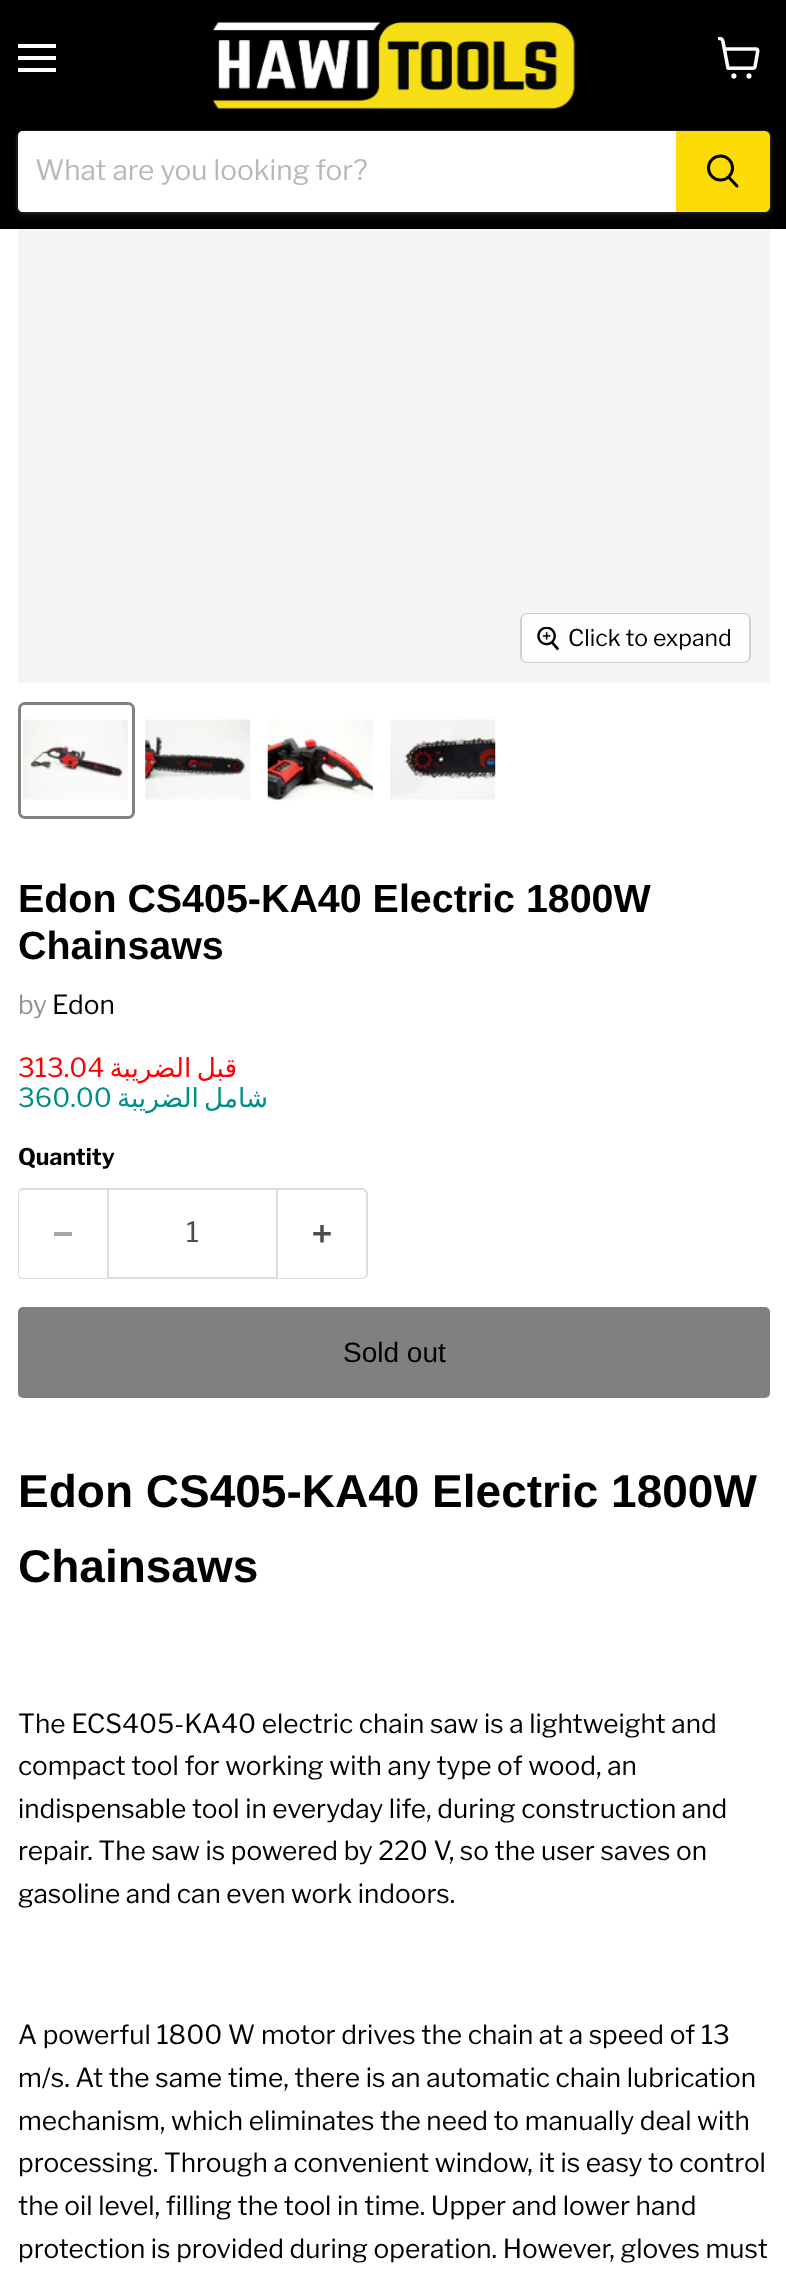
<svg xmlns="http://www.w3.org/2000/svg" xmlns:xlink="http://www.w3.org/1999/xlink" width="786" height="2280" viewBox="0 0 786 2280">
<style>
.cls-1{font:28px Libre Franklin;fill:#b8b8b8}
.cls-2{font:23px Libre Franklin;fill:#000000}
.cls-3{font:bold 39.4px Arimo;fill:#000000}
.cls-4{font:26.25px Libre Franklin;fill:#949494}
.cls-5{font:26.25px Libre Franklin;fill:#000000}
.cls-6{font:26.25px Libre Franklin;fill:#ff0000}
.cls-7{font:26.25px DejaVu Sans;direction:rtl;fill:#ff0000}
.cls-8{font:26.25px Libre Franklin;fill:#008f86}
.cls-9{font:26.25px DejaVu Sans;direction:rtl;fill:#008f86}
.cls-10{font:bold 23px Libre Franklin;fill:#000000}
.cls-11{font:28px Libre Franklin;fill:#4d4d4d}
.cls-12{font:28px Liberation Sans;fill:#000000}
.cls-13{font:bold 46px Arimo;fill:#000000}
</style>
<defs>
<clipPath id="clip1"><path d="M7 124H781V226H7ZM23 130H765C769 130 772 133 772 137V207C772 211 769 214 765 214H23C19 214 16 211 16 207V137C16 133 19 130 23 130Z" clip-rule="evenodd"/></clipPath>
</defs>
<rect width="100%" height="100%" fill="#ffffff"/>
<rect fill="#000000" x="0" y="0" width="786" height="229"/>
<rect fill="#ffffff" x="18" y="44" width="38" height="4"/>
<rect fill="#ffffff" x="18" y="56" width="38" height="4"/>
<rect fill="#ffffff" x="18" y="68" width="38" height="4"/>
<image xlink:href="image0.png" x="718" y="37" width="42" height="42"/>
<image xlink:href="image1.png" x="212" y="22" width="364" height="87"/>
<g clip-path="url(#clip1)">
<rect fill="#808080" fill-opacity="0.11" filter="blur(2.5px)" x="16" y="133" width="756" height="84" rx="7"/>
</g>
<rect fill="none" stroke="#808080" stroke-opacity="0.2" stroke-width="2" x="17" y="131" width="754" height="82" rx="6"/>
<path fill="#ffffff" d="M23 131H676V212H23C20 212 18 210 18 207V136C18 133 20 131 23 131Z"/>
<path fill="#fcdc04" stroke="#fcdc04" stroke-width="2" d="M677 132H765C767 132 769 134 769 136V207C769 209 767 211 765 211H677Z"/>
<path fill="none" stroke="#000000" stroke-width="3" stroke-linecap="round" d="M737 186L729 177.5"/>
<circle fill="none" stroke="#000000" stroke-width="3" cx="720.5" cy="168" r="12"/>
<rect fill="#f5f5f5" x="18" y="229" width="752" height="454"/>
<rect fill="none" stroke="#d0d0d0" stroke-width="2" x="521" y="614" width="229" height="48" rx="6"/>
<rect fill="#ffffff" fill-opacity="0.9" x="522" y="614" width="227" height="48" rx="5"/>
<image xlink:href="image2.png" x="537" y="627" width="23" height="24"/>
<rect fill="none" stroke="#818181" stroke-width="3" x="19.5" y="703.5" width="114" height="114" rx="5.5"/>
<image xlink:href="image3.png" x="22" y="719" width="106" height="81"/>
<image xlink:href="image4.png" x="145" y="719" width="106" height="81"/>
<image xlink:href="image5.png" x="267" y="719" width="106" height="83"/>
<image xlink:href="image6.png" x="390" y="719" width="106" height="81"/>
<path fill="#dddddd" fill-rule="evenodd" d="M23 1188H107V1279H23C20 1279 18 1277 18 1274V1194C18 1191 20 1188 23 1188ZM23 1190H107V1278H23C21 1278 19 1276 19 1274V1194C19 1192 21 1190 23 1190Z"/>
<rect fill="#a6a6a6" x="54" y="1232" width="18" height="4"/>
<rect fill="none" stroke="#dddddd" stroke-width="2" x="108" y="1189" width="169" height="89"/>
<path fill="#dddddd" fill-rule="evenodd" d="M278 1188H362C365 1188 368 1191 368 1194V1274C368 1277 365 1279 362 1279H278ZM278 1190H362C364 1190 366 1192 366 1194V1274C366 1276 364 1278 362 1278H278Z"/>
<image xlink:href="image7.png" x="313" y="1225" width="18" height="18"/>
<rect fill="#808080" stroke="#808080" stroke-width="2" x="19" y="1308" width="750" height="89" rx="4"/>
<text class="cls-1" x="35" y="180">What are you looking for?</text>
<text class="cls-2" x="568" y="646">Click to expand</text>
<text class="cls-3"><tspan x="18" y="912">Edon CS405-KA40 Electric 1800W</tspan><tspan x="18" y="959">Chainsaws</tspan></text>
<text class="cls-4" x="18" y="1014">by</text>
<text class="cls-5" x="52" y="1014">Edon</text>
<text class="cls-6" x="18" y="1077">313.04</text>
<text class="cls-7" x="237" y="1077" word-spacing="-3">قبل الضريبة</text>
<text class="cls-8" x="18" y="1107">360.00</text>
<text class="cls-9" x="268" y="1107" word-spacing="-3">شامل الضريبة</text>
<text class="cls-10" x="18" y="1165">Quantity</text>
<text class="cls-11" x="186" y="1242">1</text>
<text class="cls-12" x="343" y="1362">Sold out</text>
<text class="cls-13"><tspan x="18" y="1507">Edon CS405-KA40 Electric 1800W</tspan><tspan x="18" y="1582">Chainsaws</tspan></text>
<text class="cls-5"><tspan x="18" y="1733">The ECS405-KA40 electric chain saw is a lightweight and</tspan><tspan x="18" y="1775">compact tool for working with any type of wood, an</tspan><tspan x="18" y="1818">indispensable tool in everyday life, during construction and</tspan><tspan x="18" y="1860">repair. The saw is powered by 220 V, so the user saves on</tspan><tspan x="18" y="1903">gasoline and can even work indoors.</tspan></text>
<text class="cls-5"><tspan x="18" y="2044">A powerful 1800 W motor drives the chain at a speed of 13</tspan><tspan x="18" y="2087">m/s. At the same time, there is an automatic chain lubrication</tspan><tspan x="18" y="2130">mechanism, which eliminates the need to manually deal with</tspan><tspan x="18" y="2172">processing. Through a convenient window, it is easy to control</tspan><tspan x="18" y="2215">the oil level, filling the tool in time. Upper and lower hand</tspan><tspan x="18" y="2258">protection is provided during operation. However, gloves must</tspan></text>
</svg>
